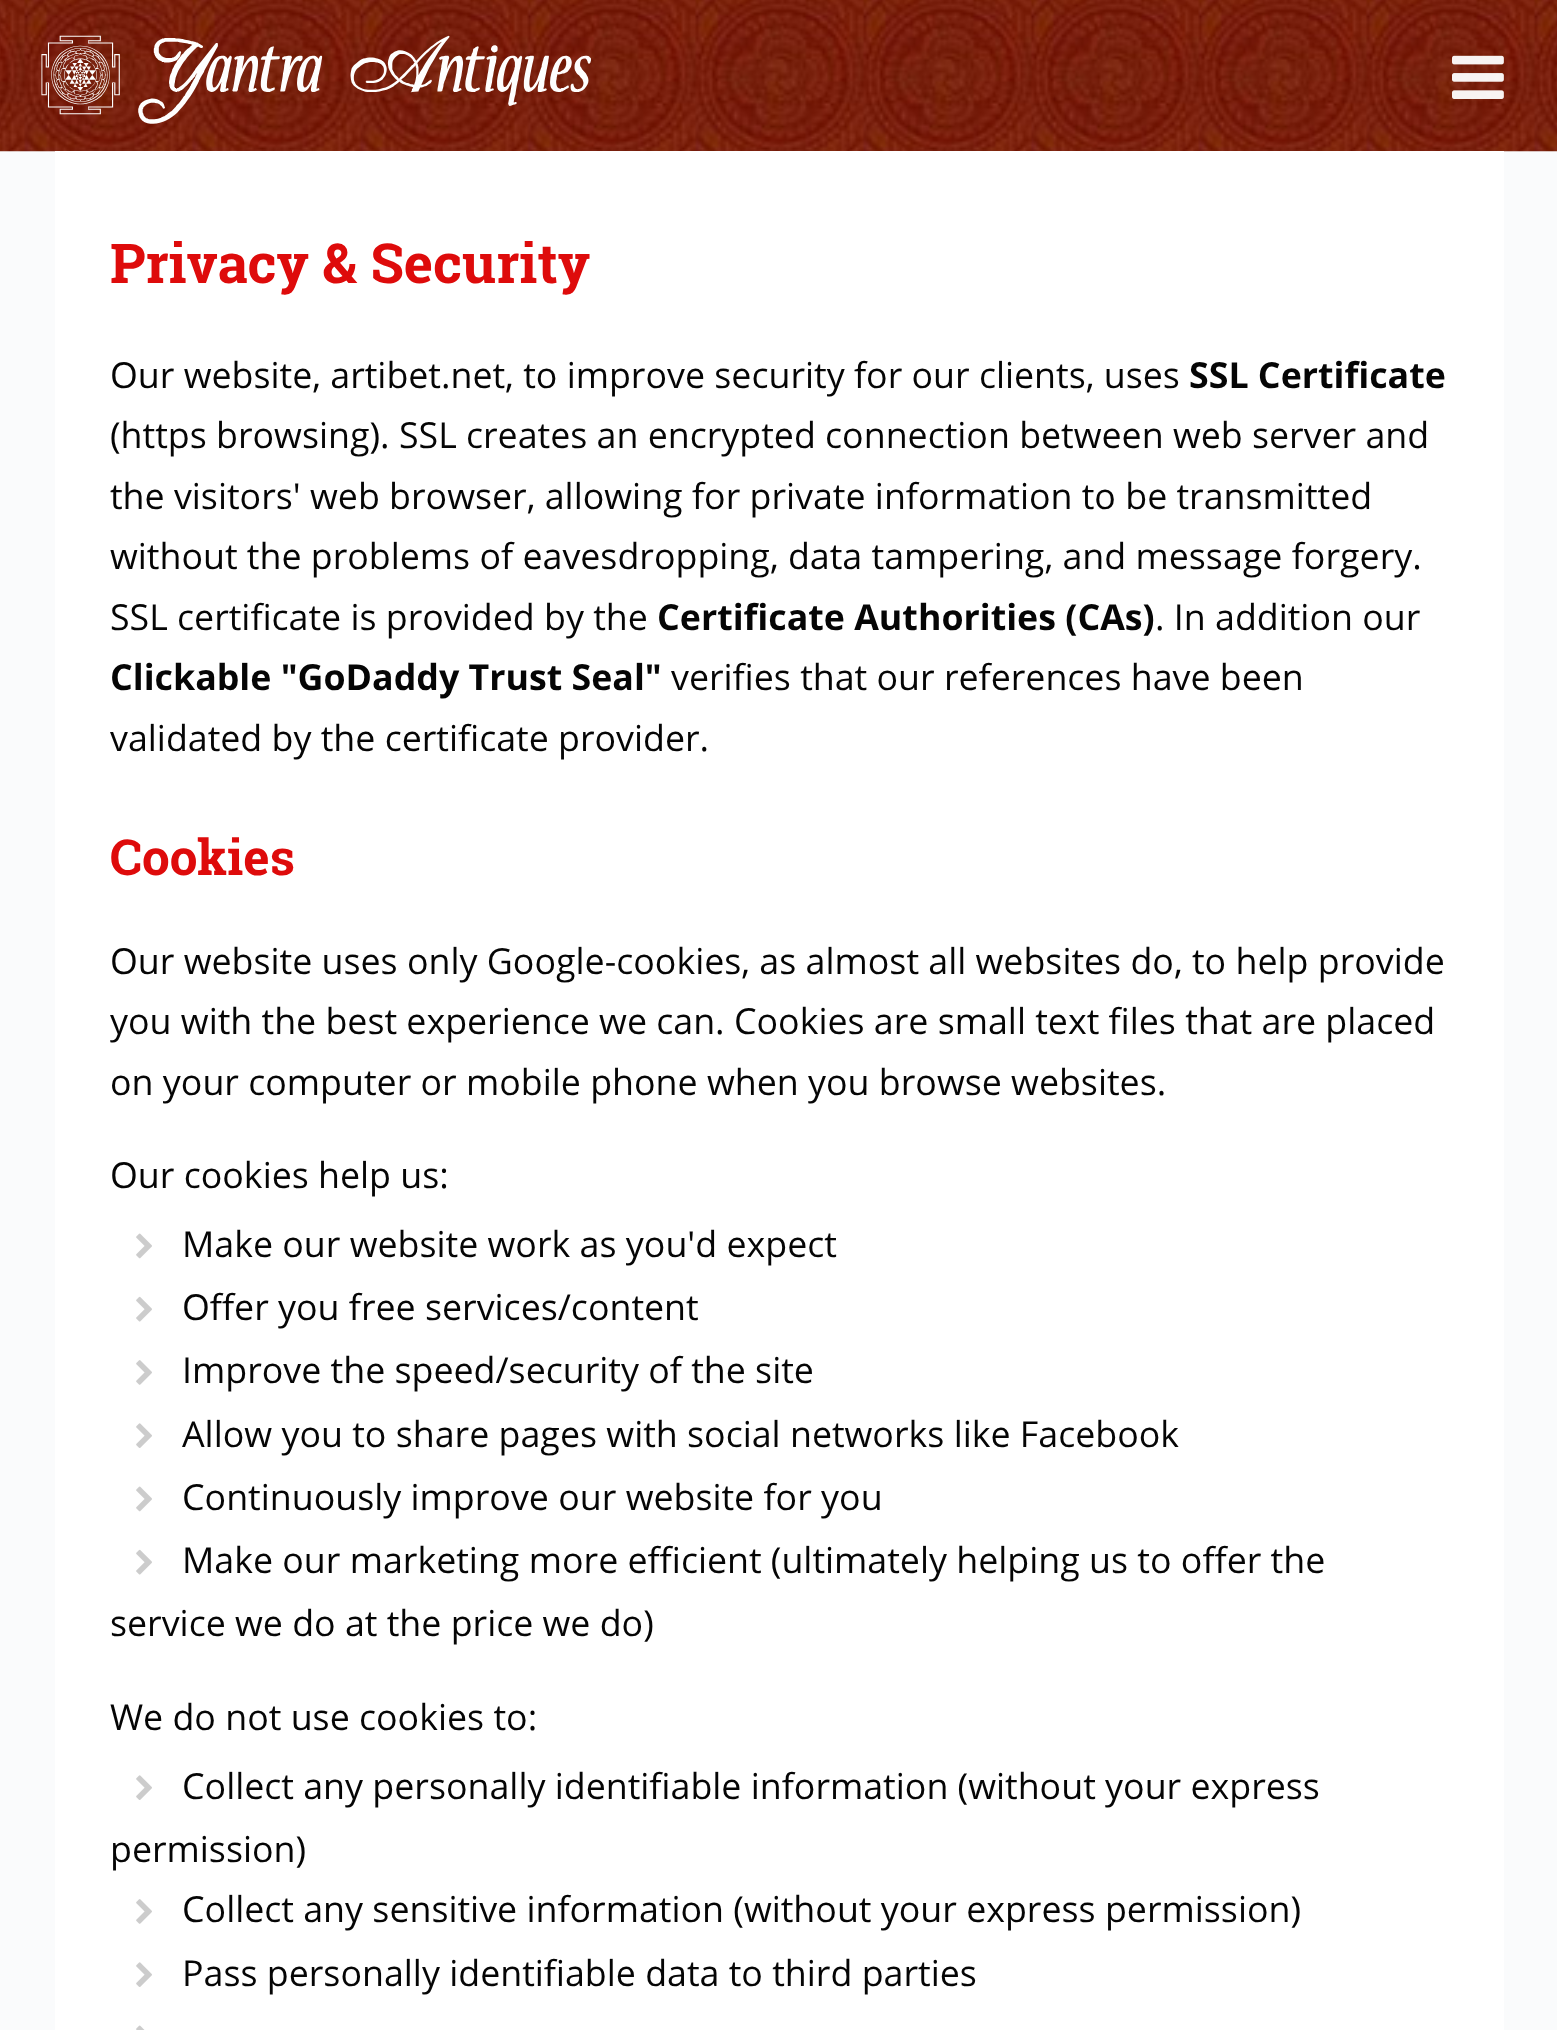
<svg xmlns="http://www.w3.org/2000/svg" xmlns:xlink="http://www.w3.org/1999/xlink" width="1557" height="2030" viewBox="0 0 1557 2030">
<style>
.cls-1{font:bold 55px Roboto Slab;fill:#de0b0b}
.cls-2{font:35.75px Open Sans;fill:#050505}
.cls-3{font:bold 35.75px Open Sans;fill:#050505}
.cls-4{font:bold 49.5px Roboto Slab;fill:#de0b0b}
</style>
<rect width="100%" height="100%" fill="#fafbfc"/>
<image xlink:href="image0.png" x="0" y="0" width="1557" height="152"/>
<image xlink:href="image1.png" x="41" y="35" width="550" height="89"/>
<image xlink:href="image2.png" x="1452" y="55" width="52" height="44"/>
<rect fill="#ffffff" x="55" y="151" width="1449" height="1879"/>
<image xlink:href="image3.png" x="136" y="1233" width="16" height="26"/>
<image xlink:href="image4.png" x="136" y="1296" width="16" height="26"/>
<image xlink:href="image5.png" x="136" y="1360" width="16" height="25"/>
<image xlink:href="image6.png" x="136" y="1423" width="16" height="25"/>
<image xlink:href="image3.png" x="136" y="1486" width="16" height="26"/>
<image xlink:href="image4.png" x="136" y="1549" width="16" height="26"/>
<image xlink:href="image6.png" x="136" y="1775" width="16" height="25"/>
<image xlink:href="image5.png" x="136" y="1899" width="16" height="25"/>
<image xlink:href="image6.png" x="136" y="1962" width="16" height="25"/>
<image xlink:href="image7.png" x="136" y="2025" width="9" height="5"/>
<text class="cls-1" x="110" y="283">Privacy &amp; Security</text>
<text class="cls-2" x="110" y="388">Our website, artibet.net, to improve security for our clients, uses</text>
<text class="cls-3" x="1189" y="388">SSL Certificate</text>
<text class="cls-2"><tspan x="110" y="448">(https browsing). SSL creates an encrypted connection between web server and</tspan><tspan x="110" y="509">the visitors' web browser, allowing for private information to be transmitted</tspan><tspan x="110" y="569">without the problems of eavesdropping, data tampering, and message forgery.</tspan><tspan x="110" y="630">SSL certificate is provided by the</tspan></text>
<text class="cls-3" x="657" y="630">Certificate Authorities (CAs)</text>
<text class="cls-2" x="1155" y="630">. In addition our</text>
<text class="cls-3" x="110" y="690">Clickable "GoDaddy Trust Seal"</text>
<text class="cls-2" x="671" y="690">verifies that our references have been</text>
<text class="cls-2" x="110" y="751">validated by the certificate provider.</text>
<text class="cls-4" x="110" y="875">Cookies</text>
<text class="cls-2"><tspan x="110" y="974">Our website uses only Google-cookies, as almost all websites do, to help provide</tspan><tspan x="110" y="1034">you with the best experience we can. Cookies are small text files that are placed</tspan><tspan x="110" y="1095">on your computer or mobile phone when you browse websites.</tspan></text>
<text class="cls-2" x="110" y="1188">Our cookies help us:</text>
<text class="cls-2"><tspan x="182" y="1257">Make our website work as you'd expect</tspan><tspan x="182" y="1320">Offer you free services/content</tspan><tspan x="182" y="1383">Improve the speed/security of the site</tspan><tspan x="182" y="1447">Allow you to share pages with social networks like Facebook</tspan><tspan x="182" y="1510">Continuously improve our website for you</tspan><tspan x="182" y="1573">Make our marketing more efficient (ultimately helping us to offer the</tspan></text>
<text class="cls-2" x="110" y="1636">service we do at the price we do)</text>
<text class="cls-2" x="110" y="1730">We do not use cookies to:</text>
<text class="cls-2" x="182" y="1799">Collect any personally identifiable information (without your express</text>
<text class="cls-2" x="110" y="1862">permission)</text>
<text class="cls-2"><tspan x="182" y="1922">Collect any sensitive information (without your express permission)</tspan><tspan x="182" y="1986">Pass personally identifiable data to third parties</tspan></text>
</svg>
